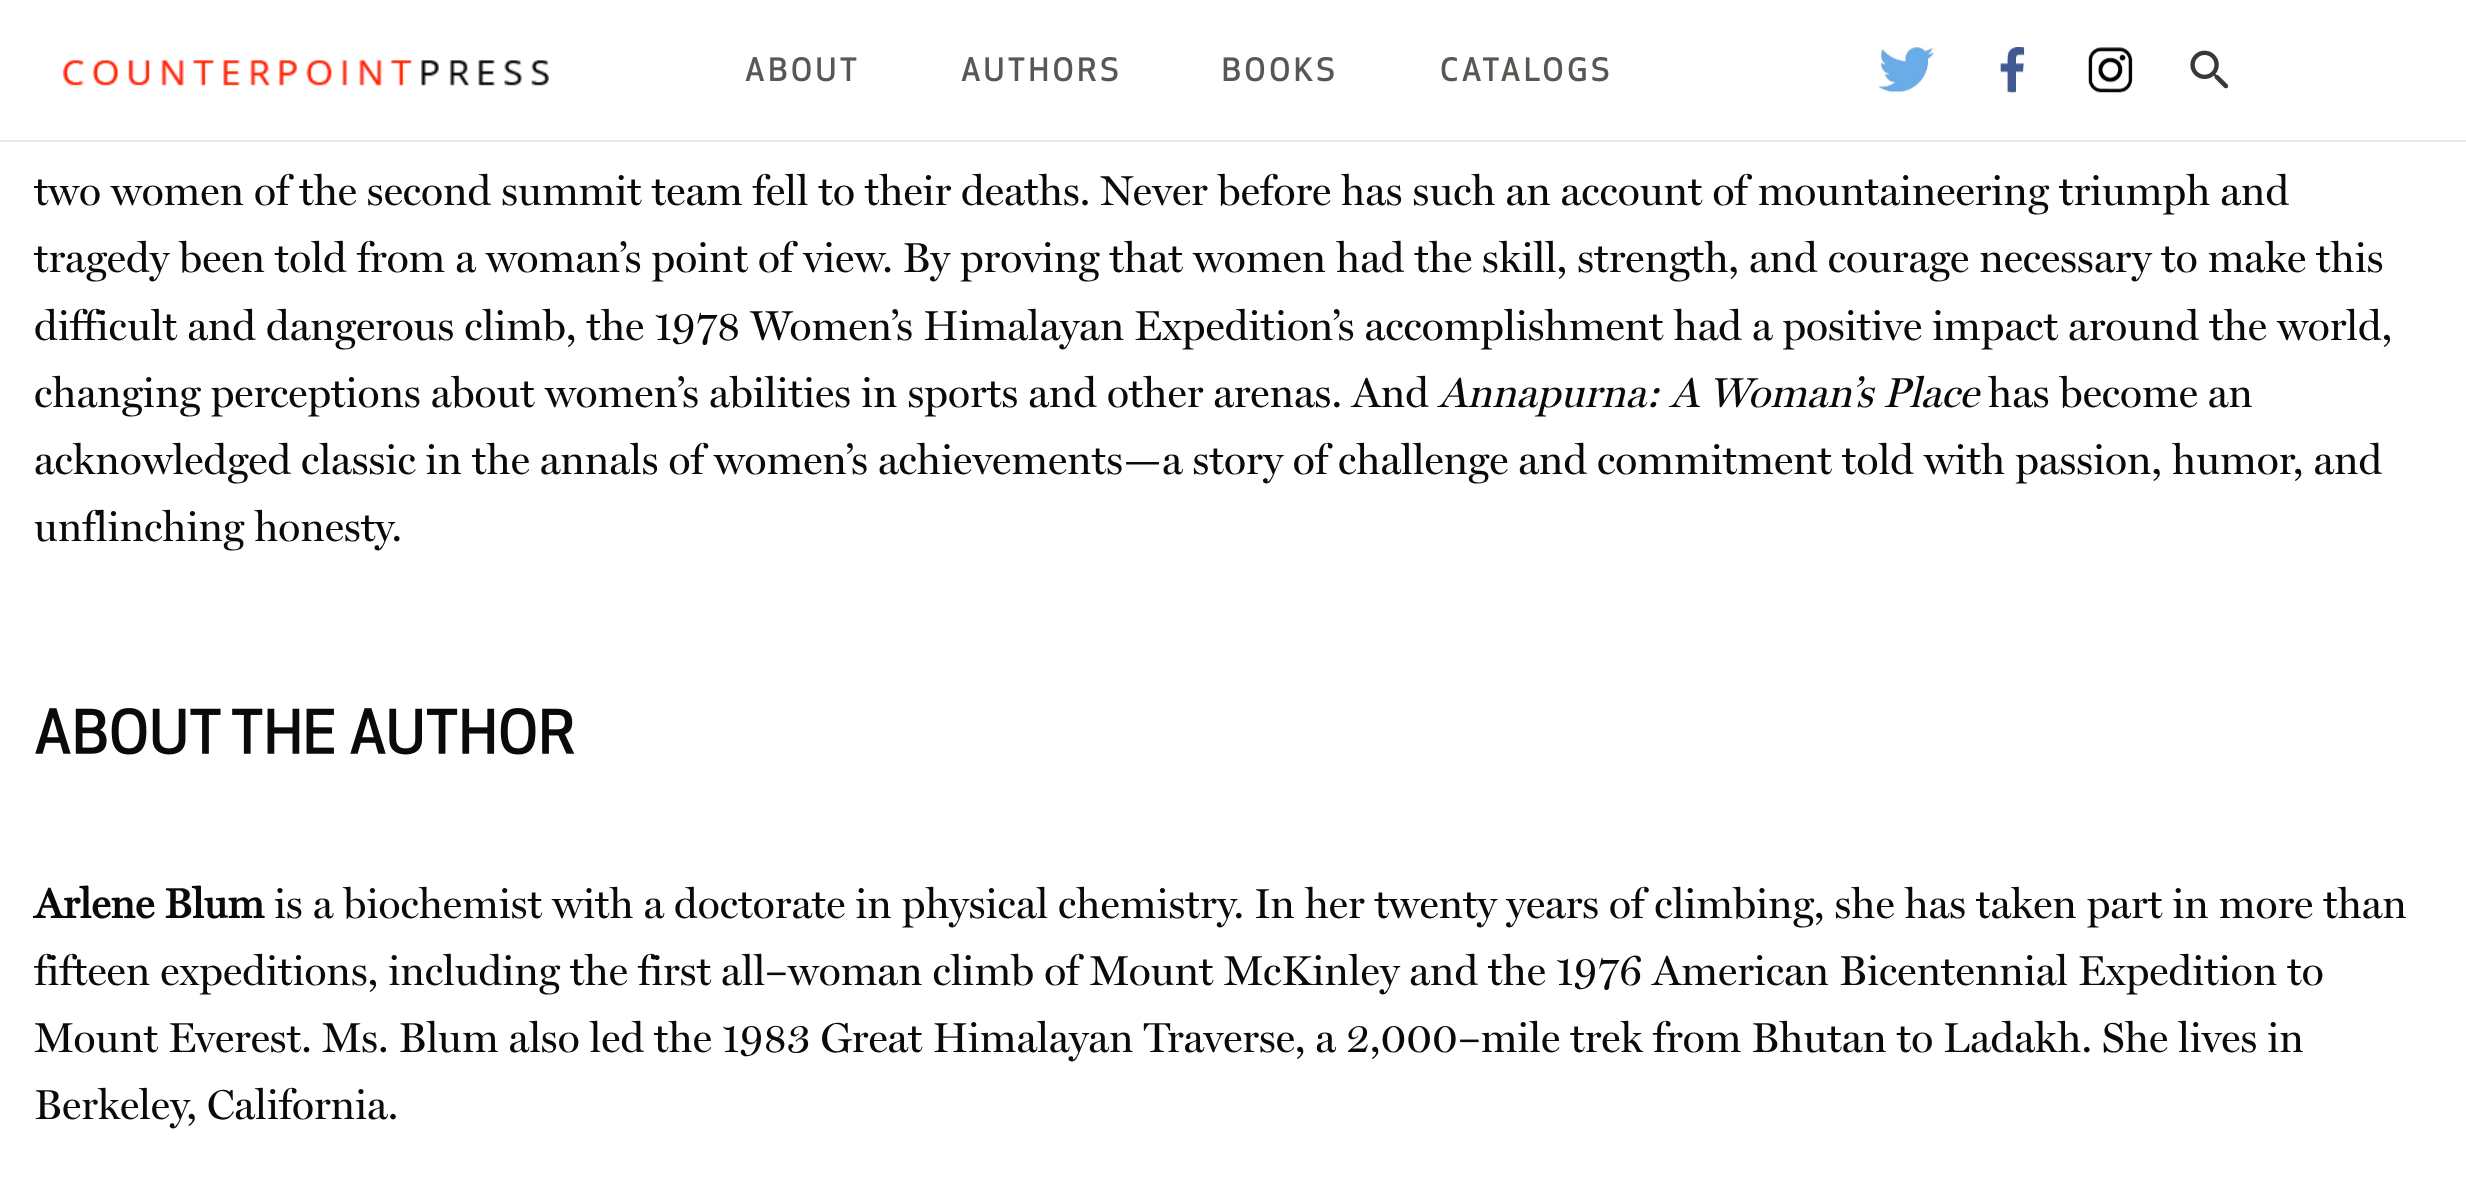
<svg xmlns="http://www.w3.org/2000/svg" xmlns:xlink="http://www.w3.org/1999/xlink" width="2466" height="1193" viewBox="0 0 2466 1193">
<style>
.cls-1{font:500 42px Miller;fill:#0a0a0a}
.cls-2{font:italic 500 42px Miller;fill:#0a0a0a}
.cls-3{font:bold 42px Miller;fill:#0a0a0a}
</style>
<rect width="100%" height="100%" fill="#ffffff"/>
<rect fill="#e7e7e7" x="0" y="140" width="2466" height="2"/>
<image xlink:href="image0.png" x="63" y="60" width="486" height="26"/>
<image xlink:href="image1.png" x="745" y="57" width="112" height="25"/>
<image xlink:href="image2.png" x="961" y="57" width="157" height="25"/>
<image xlink:href="image3.png" x="1223" y="57" width="111" height="25"/>
<image xlink:href="image4.png" x="1441" y="57" width="168" height="25"/>
<image xlink:href="image5.png" x="1878" y="47" width="56" height="46"/>
<image xlink:href="image6.png" x="2000" y="47" width="25" height="46"/>
<image xlink:href="image7.png" x="2088" y="47" width="45" height="46"/>
<image xlink:href="image8.png" x="2190" y="50" width="39" height="39"/>
<image xlink:href="image9.png" x="35" y="708" width="540" height="47"/>
<text class="cls-1"><tspan x="34" y="205">two women of the second summit team fell to their deaths. Never before has such an account of mountaineering triumph and</tspan><tspan x="34" y="272">tragedy been told from a woman’s point of view. By proving that women had the skill, strength, and courage necessary to make this</tspan><tspan x="34" y="340">difficult and dangerous climb, the 1978 Women’s Himalayan Expedition’s accomplishment had a positive impact around the world,</tspan><tspan x="34" y="407">changing perceptions about women’s abilities in sports and other arenas. And</tspan></text>
<text class="cls-2" x="1438" y="407">Annapurna: A Woman’s Place</text>
<text class="cls-1" x="1988" y="407">has become an</text>
<text class="cls-1"><tspan x="34" y="474">acknowledged classic in the annals of women’s achievements—a story of challenge and commitment told with passion, humor, and</tspan><tspan x="34" y="541">unflinching honesty.</tspan></text>
<text class="cls-3" x="34" y="918">Arlene Blum</text>
<text class="cls-1" x="274" y="918">is a biochemist with a doctorate in physical chemistry. In her twenty years of climbing, she has taken part in more than</text>
<text class="cls-1"><tspan x="34" y="985">fifteen expeditions, including the first all–woman climb of Mount McKinley and the 1976 American Bicentennial Expedition to</tspan><tspan x="34" y="1052">Mount Everest. Ms. Blum also led the 1983 Great Himalayan Traverse, a 2,000–mile trek from Bhutan to Ladakh. She lives in</tspan><tspan x="34" y="1119">Berkeley, California.</tspan></text>
</svg>
